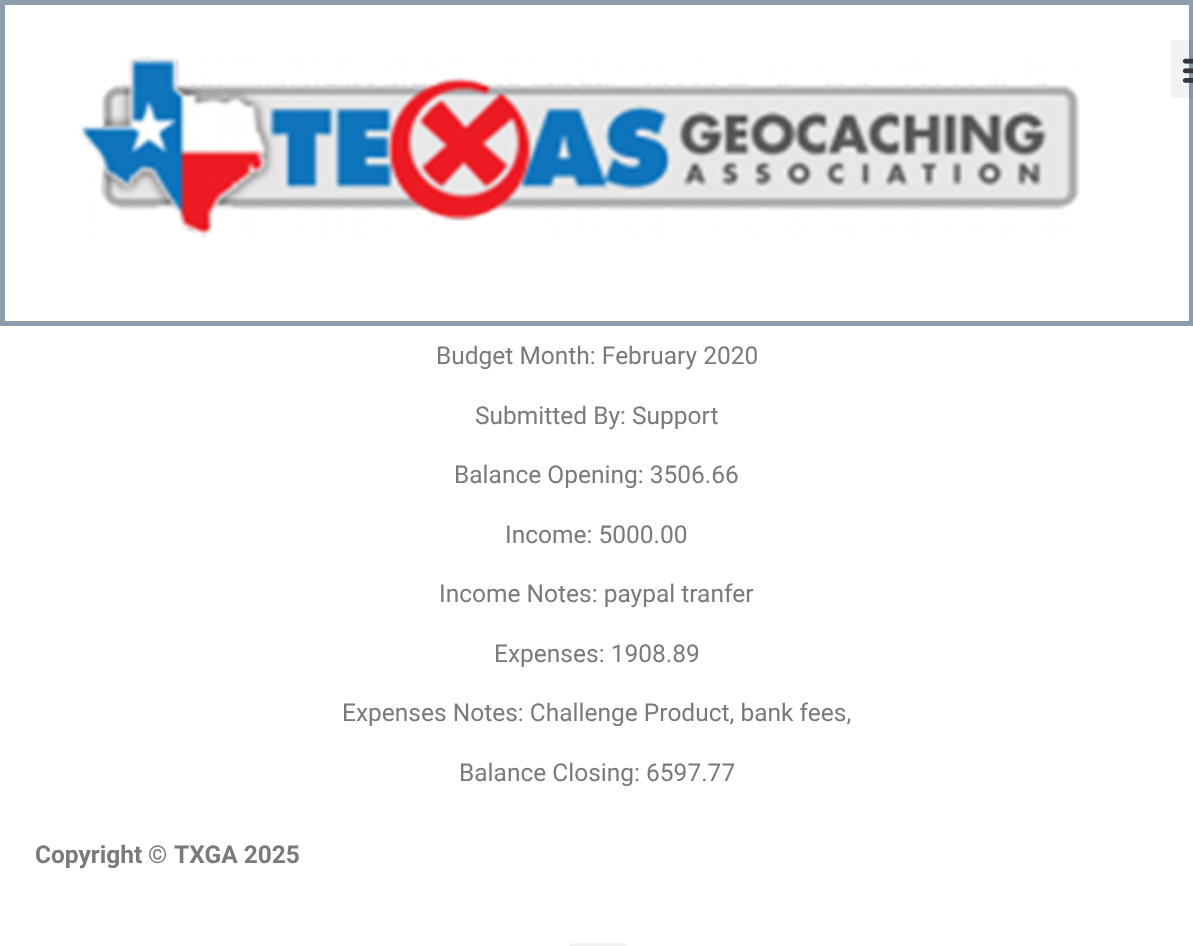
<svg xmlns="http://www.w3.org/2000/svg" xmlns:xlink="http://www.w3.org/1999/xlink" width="1193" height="946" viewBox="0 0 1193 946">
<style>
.cls-1{font:24.5px Roboto;fill:#7a7a7a}
.cls-2{font:bold 24.5px Roboto;fill:#7a7a7a}
</style>
<rect width="100%" height="100%" fill="#ffffff"/>
<rect fill="none" stroke="#8e9dae" stroke-width="5" x="2.5" y="2.5" width="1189" height="321"/>
<image xlink:href="image0.png" x="79" y="56" width="1001" height="182"/>
<rect fill="#000000" fill-opacity="0.05" x="1171" y="40" width="22" height="58"/>
<image xlink:href="image1.png" x="1182" y="58" width="11" height="25"/>
<rect fill="#f2f2f2" x="569" y="943" width="58" height="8" rx="5"/>
<text class="cls-1" x="436" y="364">Budget Month: February 2020</text>
<text class="cls-1" x="475" y="424">Submitted By: Support</text>
<text class="cls-1" x="454" y="483">Balance Opening: 3506.66</text>
<text class="cls-1" x="505" y="543">Income: 5000.00</text>
<text class="cls-1" x="439" y="602">Income Notes: paypal tranfer</text>
<text class="cls-1" x="494" y="662">Expenses: 1908.89</text>
<text class="cls-1" x="342" y="721">Expenses Notes: Challenge Product, bank fees,</text>
<text class="cls-1" x="459" y="781">Balance Closing: 6597.77</text>
<text class="cls-2" x="35" y="863">Copyright</text>
<text class="cls-1" x="148" y="863">©</text>
<text class="cls-2" x="174" y="863">TXGA 2025</text>
</svg>
